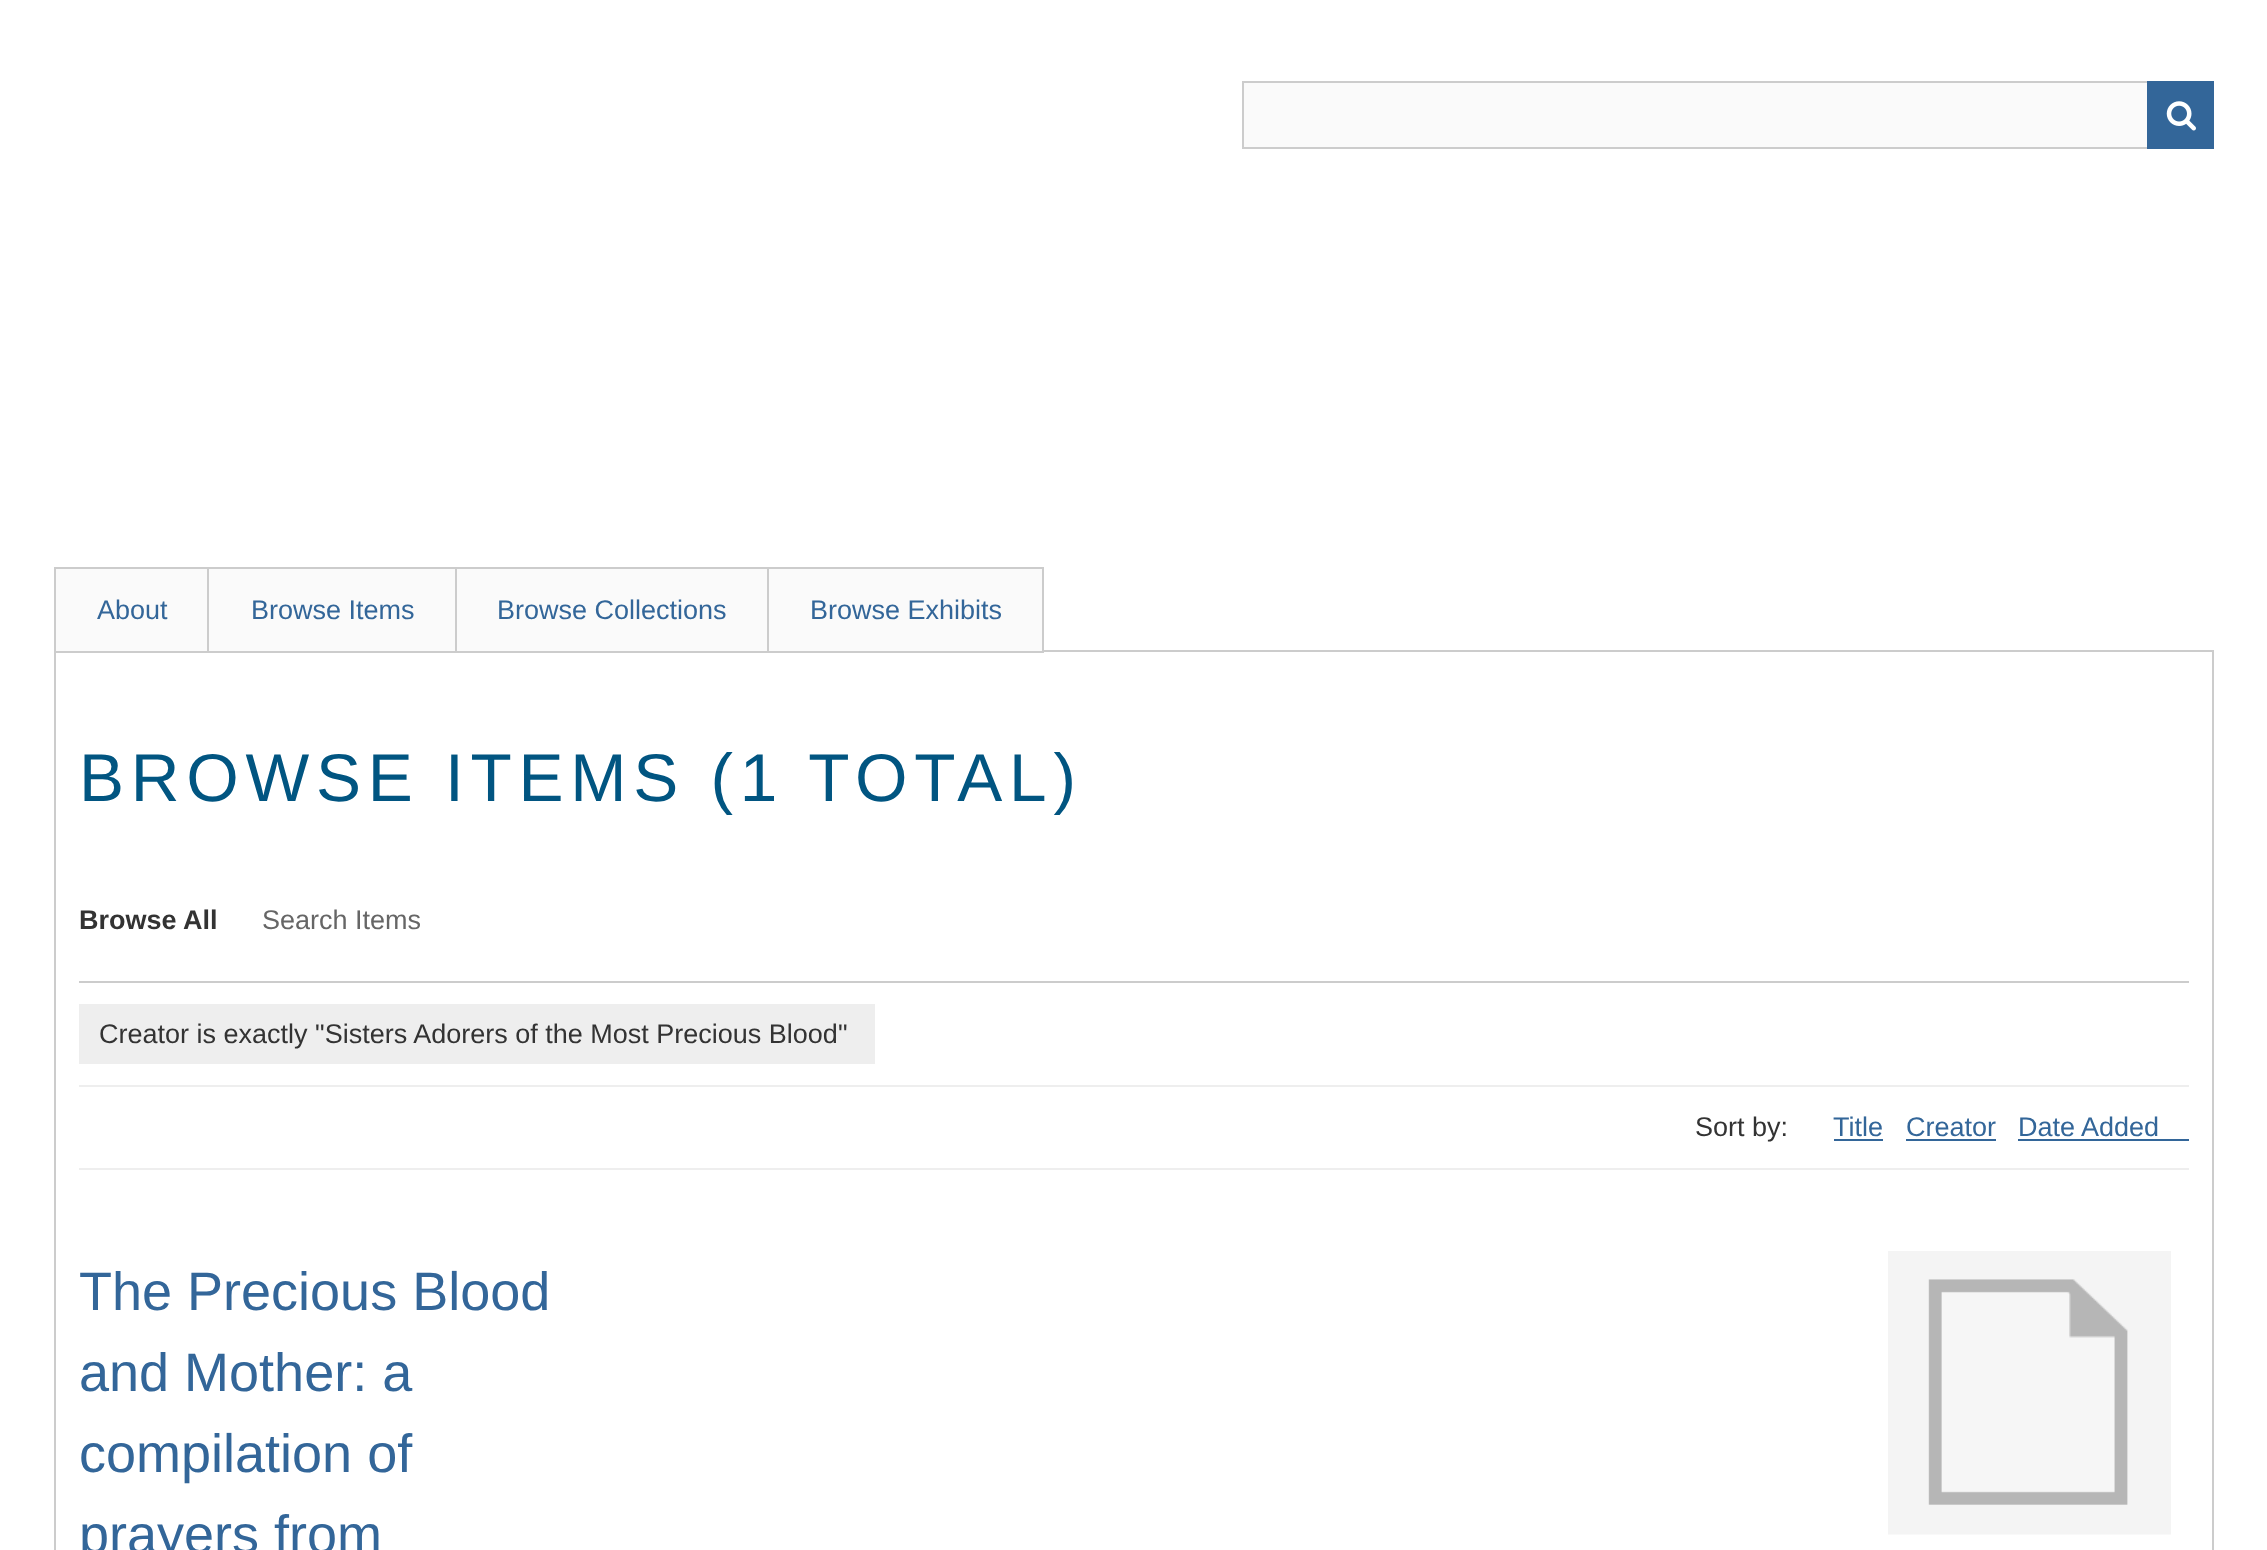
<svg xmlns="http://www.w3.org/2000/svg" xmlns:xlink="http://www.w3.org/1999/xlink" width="2267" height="1550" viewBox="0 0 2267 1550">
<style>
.cls-1{font:27px Liberation Sans;fill:#336699}
.cls-2{font:67.5px Liberation Sans;letter-spacing:6.75px;fill:#015581}
.cls-3{font:bold 27px Liberation Sans;fill:#333333}
.cls-4{font:27px Liberation Sans;fill:#666666}
.cls-5{font:27px Liberation Sans;fill:#333333}
.cls-6{font:27px FontAwesome;fill:#336699}
.cls-7{font:54px Liberation Sans;fill:#336699}
</style>
<rect width="100%" height="100%" fill="#ffffff"/>
<rect fill="#fafafa" x="1244" y="83" width="903" height="64"/>
<rect fill="none" stroke="#cccccc" stroke-width="2" x="1243" y="82" width="970" height="66"/>
<rect fill="#336699" x="2147" y="81" width="67" height="68"/>
<image xlink:href="image0.png" x="2166" y="101" width="30" height="30"/>
<rect fill="none" stroke="#cccccc" stroke-width="2" x="55" y="651" width="2158" height="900"/>
<rect fill="#fafafa" stroke="#cccccc" stroke-width="2" x="55" y="568" width="153" height="84"/>
<rect fill="#fafafa" stroke="#cccccc" stroke-width="2" x="208" y="568" width="248" height="84"/>
<rect fill="#fafafa" x="457" y="569" width="310" height="82"/>
<rect fill="none" stroke="#cccccc" stroke-width="2" x="456" y="568" width="313" height="84"/>
<rect fill="#fafafa" stroke="#cccccc" stroke-width="2" x="768" y="568" width="275" height="84"/>
<rect fill="#cccccc" x="79" y="981" width="2110" height="2"/>
<rect fill="#eeeeee" x="79" y="1085" width="2110" height="2"/>
<rect fill="#eeeeee" x="79" y="1004" width="796" height="60"/>
<rect fill="#336699" x="1834" y="1139" width="49" height="2"/>
<rect fill="#336699" x="1906" y="1139" width="90" height="2"/>
<rect fill="#336699" x="2018" y="1139" width="171" height="2"/>
<rect fill="#eeeeee" x="79" y="1168" width="2110" height="2"/>
<image xlink:href="image1.png" x="1888" y="1251" width="283" height="284"/>
<text class="cls-1" x="97" y="619">About</text>
<text class="cls-1" x="251" y="619">Browse Items</text>
<text class="cls-1" x="497" y="619">Browse Collections</text>
<text class="cls-1" x="810" y="619">Browse Exhibits</text>
<text class="cls-2" x="79" y="801">BROWSE ITEMS (1 TOTAL)</text>
<text class="cls-3" x="79" y="929">Browse All</text>
<text class="cls-4" x="262" y="929">Search Items</text>
<text class="cls-5" x="99" y="1043">Creator is exactly "Sisters Adorers of the Most Precious Blood"</text>
<text class="cls-5" x="1695" y="1136">Sort by:</text>
<text class="cls-1" x="1833" y="1136">Title</text>
<text class="cls-1" x="1906" y="1136">Creator</text>
<text class="cls-1" x="2018" y="1136">Date Added</text>
<text class="cls-6" x="2174" y="1136"></text>
<text class="cls-7"><tspan x="79" y="1310">The Precious Blood</tspan><tspan x="79" y="1391">and Mother: a</tspan><tspan x="79" y="1472">compilation of</tspan><tspan x="79" y="1553">prayers from</tspan></text>
</svg>
